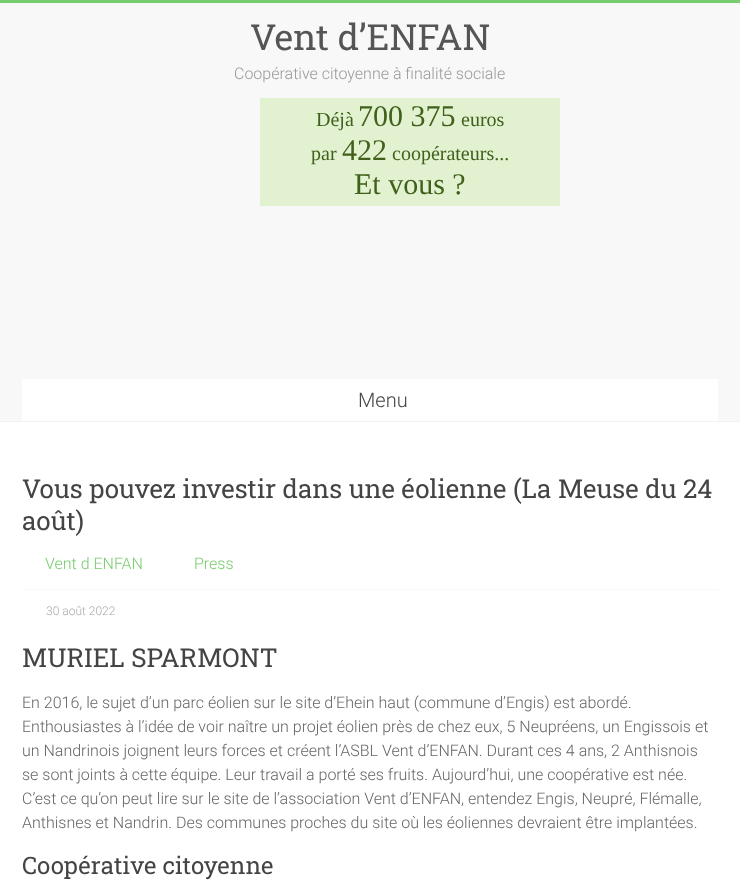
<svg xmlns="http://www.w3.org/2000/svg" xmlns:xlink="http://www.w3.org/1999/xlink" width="740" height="881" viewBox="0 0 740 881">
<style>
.cls-1{font:36px Roboto Slab;fill:#555555}
.cls-2{font:300 16px Roboto;fill:#999999}
.cls-3{font:20px Liberation Serif;fill:#40601b}
.cls-4{font:30px Liberation Serif;fill:#40601b}
.cls-5{font:300 20px Roboto;fill:#444444}
.cls-6{font:26px Roboto Slab;fill:#444444}
.cls-7{font:300 16px Roboto;fill:#77cc6d}
.cls-8{font:300 12px Roboto;fill:#aaaaaa}
.cls-9{font:300 16px Roboto;fill:#666666}
.cls-10{font:24px Roboto Slab;fill:#444444}
</style>
<rect width="100%" height="100%" fill="#ffffff"/>
<rect fill="#77cc6d" x="0" y="0" width="740" height="3"/>
<rect fill="#f8f8f8" x="0" y="3" width="740" height="418"/>
<rect fill="#f2f2f2" x="0" y="421" width="740" height="1"/>
<rect fill="#e2f1d0" x="260" y="98" width="300" height="108"/>
<rect fill="#ffffff" x="22" y="379" width="696" height="42"/>
<rect fill="#f8f8f8" x="22" y="589" width="696" height="1"/>
<text class="cls-1" x="250" y="50">Vent d’ENFAN</text>
<text class="cls-2" x="234" y="79">Coopérative citoyenne à finalité sociale</text>
<text class="cls-3" x="316" y="126">Déjà</text>
<text class="cls-4" x="358" y="126">700 375</text>
<text class="cls-3" x="461" y="126">euros</text>
<text class="cls-3" x="311" y="160">par</text>
<text class="cls-4" x="342" y="160">422</text>
<text class="cls-3" x="392" y="160">coopérateurs...</text>
<text class="cls-4" x="354" y="194">Et vous ?</text>
<text class="cls-5" x="358" y="407">Menu</text>
<text class="cls-6"><tspan x="22" y="498">Vous pouvez investir dans une éolienne (La Meuse du 24</tspan><tspan x="22" y="530">août)</tspan></text>
<text class="cls-7" x="45" y="569">Vent d ENFAN</text>
<text class="cls-7" x="194" y="569">Press</text>
<text class="cls-8" x="46" y="615">30 août 2022</text>
<text class="cls-6" x="22" y="667">MURIEL SPARMONT</text>
<text class="cls-9"><tspan x="22" y="708">En 2016, le sujet d’un parc éolien sur le site d’Ehein haut (commune d’Engis) est abordé.</tspan><tspan x="22" y="732">Enthousiastes à l’idée de voir naître un projet éolien près de chez eux, 5 Neupréens, un Engissois et</tspan><tspan x="22" y="756">un Nandrinois joignent leurs forces et créent l’ASBL Vent d’ENFAN. Durant ces 4 ans, 2 Anthisnois</tspan><tspan x="22" y="780">se sont joints à cette équipe. Leur travail a porté ses fruits. Aujourd’hui, une coopérative est née.</tspan><tspan x="22" y="804">C’est ce qu’on peut lire sur le site de l’association Vent d’ENFAN, entendez Engis, Neupré, Flémalle,</tspan><tspan x="22" y="828">Anthisnes et Nandrin. Des communes proches du site où les éoliennes devraient être implantées.</tspan></text>
<text class="cls-10" x="22" y="874">Coopérative citoyenne</text>
</svg>
